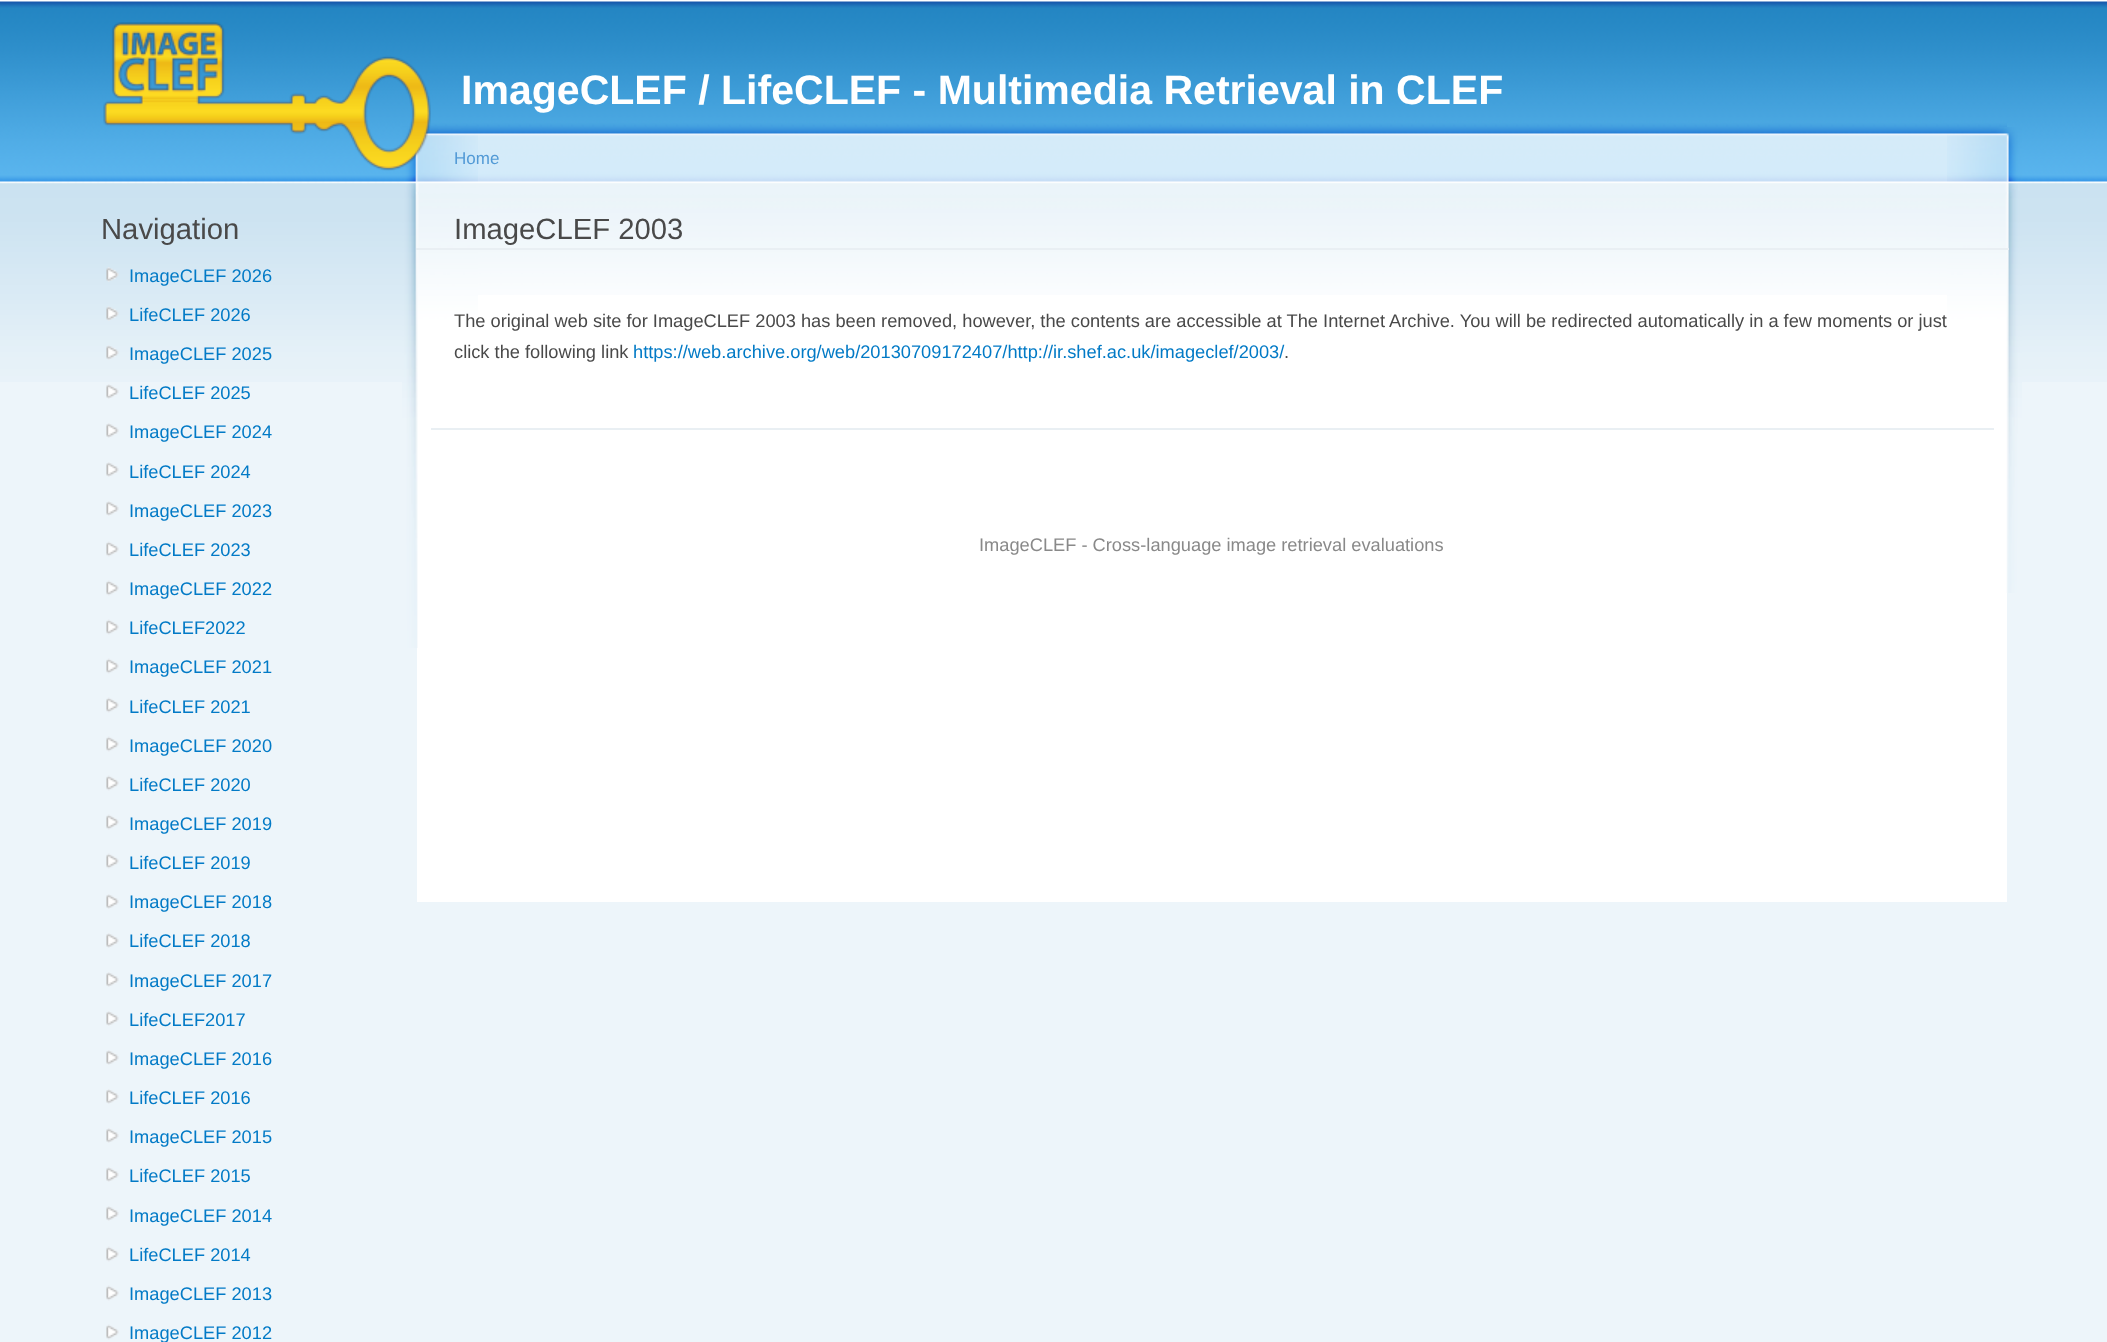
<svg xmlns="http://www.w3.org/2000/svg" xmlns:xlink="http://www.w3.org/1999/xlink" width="2107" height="1342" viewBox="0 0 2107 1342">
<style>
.cls-1{font:bold 41.05px Liberation Sans;fill:#ffffff}
.cls-2{font:29.25px Liberation Sans;fill:#494949}
.cls-3{font:18.25px Liberation Sans;fill:#027ac6}
.cls-4{font:17px Liberation Sans;fill:#529ad6}
.cls-5{font:18.25px Liberation Sans;fill:#494949}
.cls-6{font:18.25px Liberation Sans;fill:#898989}
</style>
<rect width="100%" height="100%" fill="#edf5fa"/>
<image xlink:href="image0.png" x="0" y="0" width="2107" height="382"/>
<image xlink:href="image7.png" x="427" y="120" width="1580" height="175"/>
<rect fill="#ffffff" x="417" y="295" width="1590" height="607"/>
<image xlink:href="image9.png" x="402" y="126" width="76" height="522"/>
<image xlink:href="image1.png" x="103" y="22" width="328" height="149"/>
<image xlink:href="image2.png" x="106" y="267" width="13" height="15"/>
<image xlink:href="image3.png" x="106" y="306" width="13" height="15"/>
<image xlink:href="image4.png" x="106" y="345" width="13" height="15"/>
<image xlink:href="image5.png" x="106" y="384" width="13" height="15"/>
<image xlink:href="image5.png" x="106" y="423" width="13" height="15"/>
<image xlink:href="image5.png" x="106" y="462" width="13" height="15"/>
<image xlink:href="image5.png" x="106" y="501" width="13" height="15"/>
<image xlink:href="image6.png" x="106" y="541" width="13" height="16"/>
<image xlink:href="image6.png" x="106" y="580" width="13" height="16"/>
<image xlink:href="image6.png" x="106" y="619" width="13" height="16"/>
<image xlink:href="image6.png" x="106" y="658" width="13" height="16"/>
<image xlink:href="image6.png" x="106" y="697" width="13" height="16"/>
<image xlink:href="image6.png" x="106" y="736" width="13" height="16"/>
<image xlink:href="image6.png" x="106" y="775" width="13" height="16"/>
<image xlink:href="image6.png" x="106" y="814" width="13" height="16"/>
<image xlink:href="image6.png" x="106" y="853" width="13" height="16"/>
<image xlink:href="image5.png" x="106" y="894" width="13" height="15"/>
<image xlink:href="image5.png" x="106" y="933" width="13" height="15"/>
<image xlink:href="image5.png" x="106" y="972" width="13" height="15"/>
<image xlink:href="image5.png" x="106" y="1011" width="13" height="15"/>
<image xlink:href="image5.png" x="106" y="1050" width="13" height="15"/>
<image xlink:href="image5.png" x="106" y="1089" width="13" height="15"/>
<image xlink:href="image5.png" x="106" y="1128" width="13" height="15"/>
<image xlink:href="image5.png" x="106" y="1167" width="13" height="15"/>
<image xlink:href="image5.png" x="106" y="1206" width="13" height="15"/>
<image xlink:href="image6.png" x="106" y="1246" width="13" height="16"/>
<image xlink:href="image6.png" x="106" y="1285" width="13" height="16"/>
<image xlink:href="image6.png" x="106" y="1324" width="13" height="16"/>
<image xlink:href="image8.png" x="1947" y="127" width="75" height="466"/>
<rect fill="#e9eff3" x="416" y="248" width="1593" height="2"/>
<rect fill="#e9eff3" x="431" y="428" width="1563" height="2"/>
<text class="cls-1" x="461" y="104">ImageCLEF / LifeCLEF - Multimedia Retrieval in CLEF</text>
<text class="cls-2" x="101" y="239">Navigation</text>
<text class="cls-3" x="129" y="282">ImageCLEF 2026</text>
<text class="cls-3" x="129" y="321">LifeCLEF 2026</text>
<text class="cls-3" x="129" y="360">ImageCLEF 2025</text>
<text class="cls-3" x="129" y="399">LifeCLEF 2025</text>
<text class="cls-3" x="129" y="438">ImageCLEF 2024</text>
<text class="cls-3" x="129" y="478">LifeCLEF 2024</text>
<text class="cls-3" x="129" y="517">ImageCLEF 2023</text>
<text class="cls-3" x="129" y="556">LifeCLEF 2023</text>
<text class="cls-3" x="129" y="595">ImageCLEF 2022</text>
<text class="cls-3" x="129" y="634">LifeCLEF2022</text>
<text class="cls-3" x="129" y="673">ImageCLEF 2021</text>
<text class="cls-3" x="129" y="713">LifeCLEF 2021</text>
<text class="cls-3" x="129" y="752">ImageCLEF 2020</text>
<text class="cls-3" x="129" y="791">LifeCLEF 2020</text>
<text class="cls-3" x="129" y="830">ImageCLEF 2019</text>
<text class="cls-3" x="129" y="869">LifeCLEF 2019</text>
<text class="cls-3" x="129" y="908">ImageCLEF 2018</text>
<text class="cls-3" x="129" y="947">LifeCLEF 2018</text>
<text class="cls-3" x="129" y="987">ImageCLEF 2017</text>
<text class="cls-3" x="129" y="1026">LifeCLEF2017</text>
<text class="cls-3" x="129" y="1065">ImageCLEF 2016</text>
<text class="cls-3" x="129" y="1104">LifeCLEF 2016</text>
<text class="cls-3" x="129" y="1143">ImageCLEF 2015</text>
<text class="cls-3" x="129" y="1182">LifeCLEF 2015</text>
<text class="cls-3" x="129" y="1222">ImageCLEF 2014</text>
<text class="cls-3" x="129" y="1261">LifeCLEF 2014</text>
<text class="cls-3" x="129" y="1300">ImageCLEF 2013</text>
<text class="cls-3" x="129" y="1339">ImageCLEF 2012</text>
<text class="cls-4" x="454" y="164">Home</text>
<text class="cls-2" x="454" y="239">ImageCLEF 2003</text>
<text class="cls-5"><tspan x="454" y="327">The original web site for ImageCLEF 2003 has been removed, however, the contents are accessible at The Internet Archive. You will be redirected automatically in a few moments or just</tspan><tspan x="454" y="358">click the following link</tspan></text>
<text class="cls-3" x="633" y="358">https://web.archive.org/web/20130709172407/http://ir.shef.ac.uk/imageclef/2003/</text>
<text class="cls-5" x="1284" y="358">.</text>
<text class="cls-6" x="979" y="551">ImageCLEF - Cross-language image retrieval evaluations</text>
</svg>
